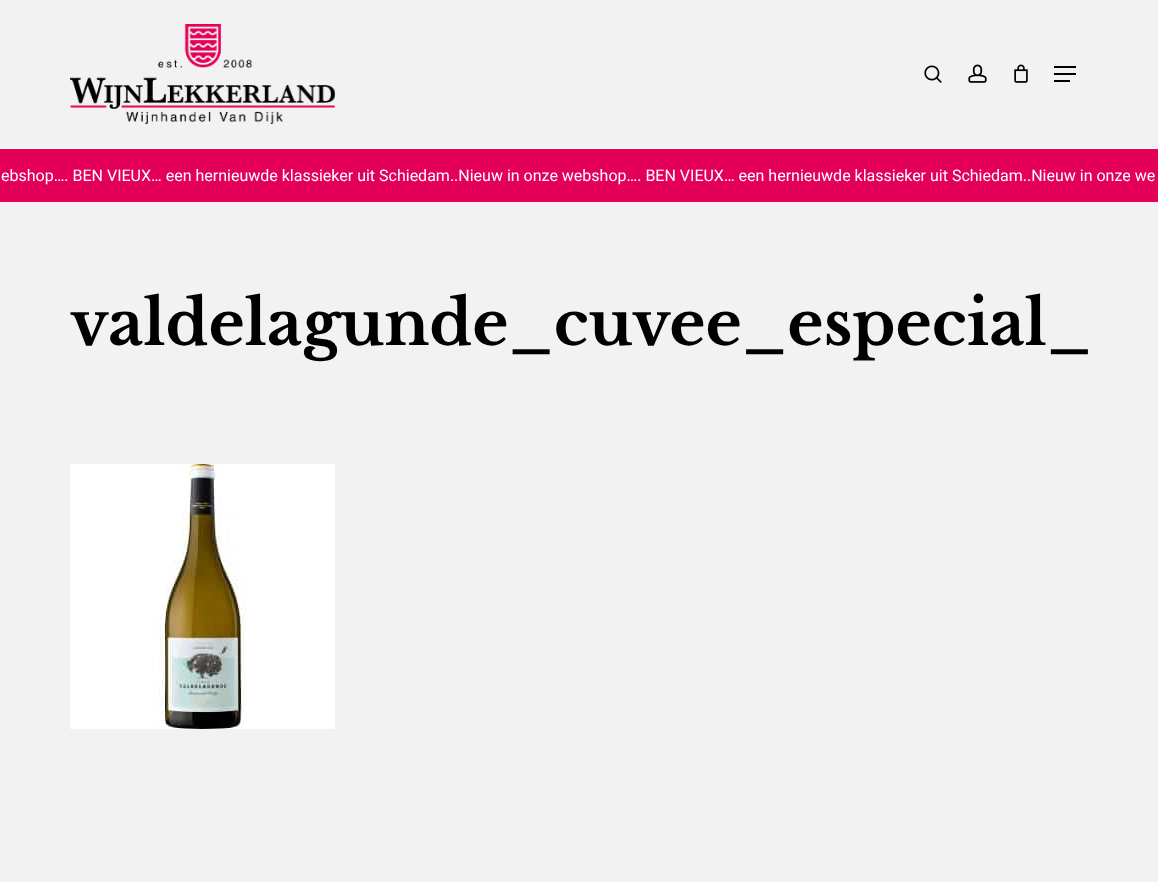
<svg xmlns="http://www.w3.org/2000/svg" xmlns:xlink="http://www.w3.org/1999/xlink" width="1158" height="882" viewBox="0 0 1158 882">
<style>
.cls-1{font:16px Roboto;fill:#ffffff}
.cls-2{font:bold 62px Libre Baskerville;fill:#000000}
</style>
<rect width="100%" height="100%" fill="#f2f2f2"/>
<image xlink:href="image0.png" x="70" y="24" width="265" height="100"/>
<image xlink:href="image1.png" x="924" y="65" width="18" height="18"/>
<image xlink:href="image2.png" x="968" y="64" width="19" height="19"/>
<image xlink:href="image3.png" x="1014" y="64" width="14" height="19"/>
<rect fill="#000000" x="1054" y="66" width="22" height="2"/>
<rect fill="#000000" x="1054" y="80" width="16" height="2"/>
<rect fill="#000000" x="1054" y="73" width="22" height="2"/>
<rect fill="#e40059" x="0" y="149" width="1158" height="53"/>
<rect fill="#ffffff" x="0" y="148" width="1158" height="1"/>
<image xlink:href="image4.png" x="70" y="464" width="265" height="265"/>
<text class="cls-1" x="1" y="181">ebshop…. BEN VIEUX… een hernieuwde klassieker uit Schiedam..Nieuw in onze webshop…. BEN VIEUX… een hernieuwde klassieker uit Schiedam..Nieuw in onze we</text>
<text class="cls-2" x="70" y="345">valdelagunde_cuvee_especial_</text>
</svg>
